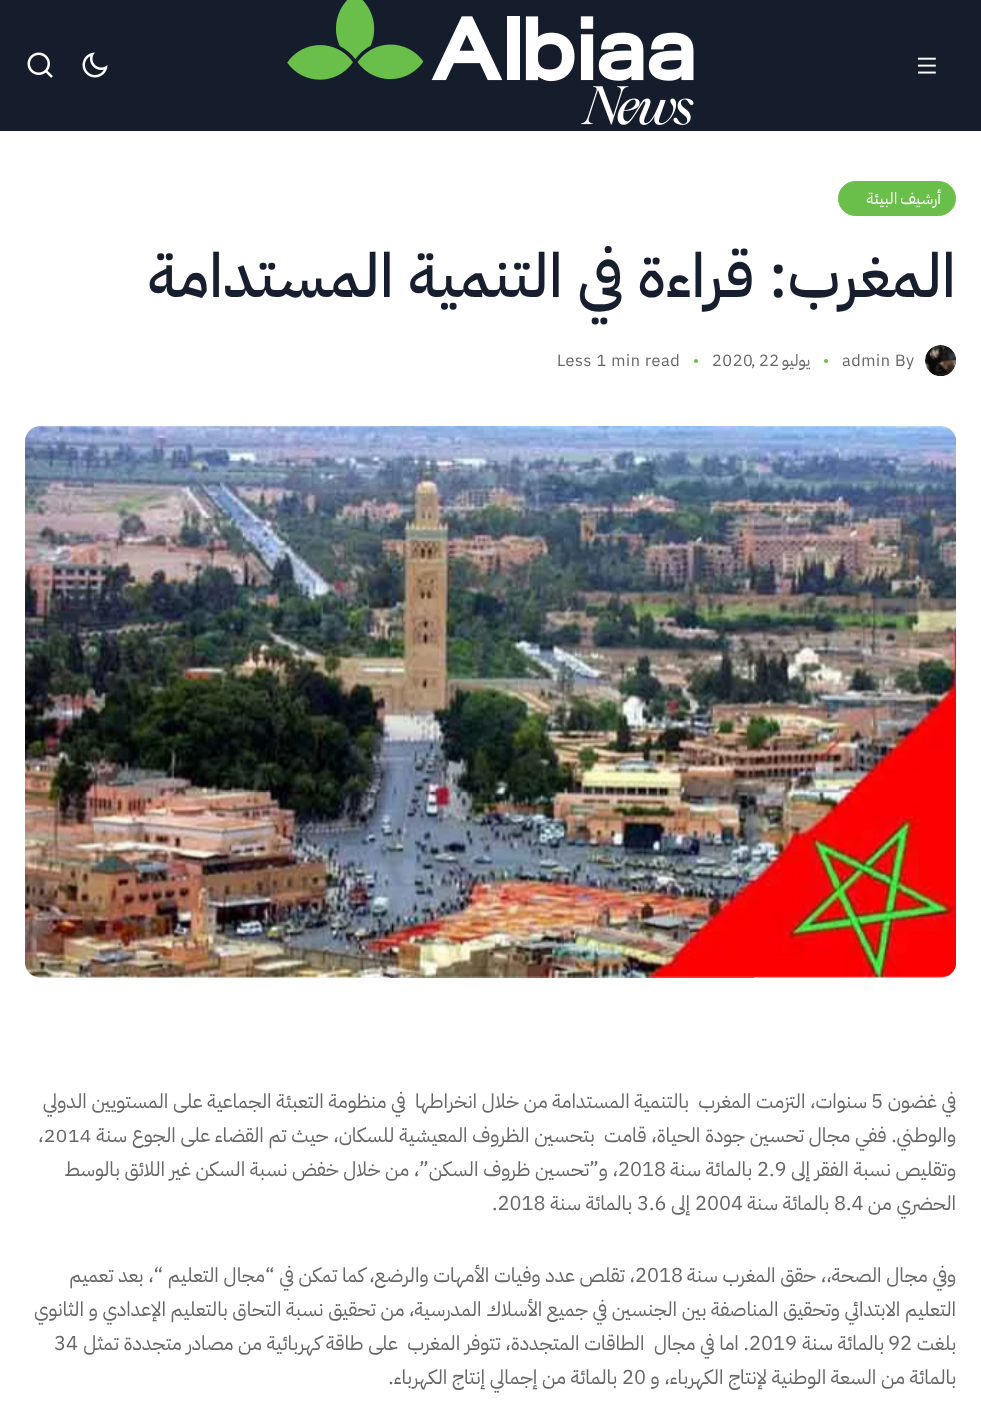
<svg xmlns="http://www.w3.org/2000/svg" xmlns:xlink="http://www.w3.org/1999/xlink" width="981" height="1419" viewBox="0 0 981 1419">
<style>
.cls-1{font:16.25px IBM Plex Sans Arabic;letter-spacing:0.6px;direction:rtl;fill:#ffffff}
.cls-2{font:500 61.25px IBM Plex Sans Arabic;direction:rtl;fill:#171e2e}
.cls-3{font:16.25px IBM Plex Sans Arabic;letter-spacing:0.6px;fill:#666666}
.cls-4{font:16.25px IBM Plex Sans Arabic;letter-spacing:0.6px;direction:rtl;fill:#666666}
.cls-5{font:20px IBM Plex Sans Arabic;direction:rtl;fill:#666666}
.cls-6{font:20px IBM Plex Sans Arabic;fill:#666666}
</style>
<rect width="100%" height="100%" fill="#ffffff"/>
<rect fill="#151c2b" x="0" y="0" width="981" height="131"/>
<image xlink:href="image0.png" x="917" y="57" width="19" height="17"/>
<image xlink:href="image1.png" x="287" y="0" width="407" height="125"/>
<image xlink:href="image2.png" x="82" y="52" width="26" height="26"/>
<image xlink:href="image3.png" x="27" y="52" width="26" height="26"/>
<rect fill="#6abf4b" stroke="#6abf4b" x="838.5" y="181.5" width="117" height="34" rx="17"/>
<image xlink:href="image4.png" x="925" y="345" width="31" height="31"/>
<circle fill="#6abf4b" cx="826" cy="361" r="2"/>
<circle fill="#6abf4b" cx="696" cy="361" r="2"/>
<rect fill="#f3f3f3" x="25" y="426" width="931" height="552" rx="15"/>
<image xlink:href="image5.png" x="25" y="426" width="931" height="552"/>
<text class="cls-1" x="941" y="204" word-spacing="-1">أرشيف البيئة</text>
<text class="cls-2" x="956" y="297">المغرب: قراءة في</text>
<text class="cls-2" x="563" y="297">التنمية المستدامة</text>
<text class="cls-3" x="895" y="366">By</text>
<text class="cls-3" x="842" y="366">admin</text>
<text class="cls-4" x="810" y="366">يوليو</text>
<text class="cls-3" x="759" y="366">22</text>
<text class="cls-3" x="712" y="366">2020</text>
<text class="cls-3" x="751" y="366">,</text>
<text class="cls-3" x="557" y="366">Less 1 min read</text>
<text class="cls-5" x="956" y="1108">في غضون</text>
<text class="cls-6" x="871" y="1108">5</text>
<text class="cls-5" xml:space="preserve" x="867" y="1108">سنوات، التزمت المغرب  بالتنمية المستدامة من خلال انخراطها  في منظومة التعبئة الجماعية على المستويين الدولي</text>
<text class="cls-5" xml:space="preserve" x="956" y="1142">والوطني. ففي مجال تحسين جودة الحياة، قامت  بتحسين الظروف المعيشية للسكان، حيث تم القضاء على الجوع سنة</text>
<text class="cls-6" x="38" y="1142">،2014</text>
<text class="cls-5" x="956" y="1176">وتقليص نسبة الفقر إلى</text>
<text class="cls-6" x="757" y="1176">2.9</text>
<text class="cls-5" x="752" y="1176">بالمائة سنة</text>
<text class="cls-6" x="618" y="1176">2018</text>
<text class="cls-5" x="618" y="1176">، و”تحسين ظروف السكن”، من خلال خفض نسبة السكن غير اللائق بالوسط</text>
<text class="cls-5" x="956" y="1210">الحضري من</text>
<text class="cls-6" x="834" y="1210">8.4</text>
<text class="cls-5" x="829" y="1210">بالمائة سنة</text>
<text class="cls-6" x="695" y="1210">2004</text>
<text class="cls-5" x="690" y="1210">إلى</text>
<text class="cls-6" x="637" y="1210">3.6</text>
<text class="cls-5" x="632" y="1210">بالمائة سنة</text>
<text class="cls-6" x="492" y="1210">.2018</text>
<text class="cls-5" x="956" y="1282">وفي مجال الصحة،، حقق المغرب سنة</text>
<text class="cls-6" x="635" y="1282">2018</text>
<text class="cls-5" x="635" y="1282">، تقلص عدد وفيات الأمهات والرضع، كما تمكن في “مجال التعليم “، بعد تعميم</text>
<text class="cls-5"><tspan x="956" y="1316">التعليم الابتدائي وتحقيق المناصفة بين الجنسين في جميع الأسلاك المدرسية، من تحقيق نسبة التحاق بالتعليم الإعدادي و الثانوي</tspan><tspan x="956" y="1350">بلغت</tspan></text>
<text class="cls-6" x="888" y="1350">92</text>
<text class="cls-5" x="884" y="1350">بالمائة سنة</text>
<text class="cls-6" x="749" y="1350">2019</text>
<text class="cls-5" xml:space="preserve" x="749" y="1350">. اما في مجال  الطاقات المتجددة، تتوفر المغرب  على طاقة كهربائية من مصادر متجددة تمثل</text>
<text class="cls-6" x="54" y="1350">34</text>
<text class="cls-5" x="956" y="1384">بالمائة من السعة الوطنية لإنتاج الكهرباء، و</text>
<text class="cls-6" x="622" y="1384">20</text>
<text class="cls-5" x="617" y="1384">بالمائة من إجمالي إنتاج الكهرباء.</text>
</svg>
